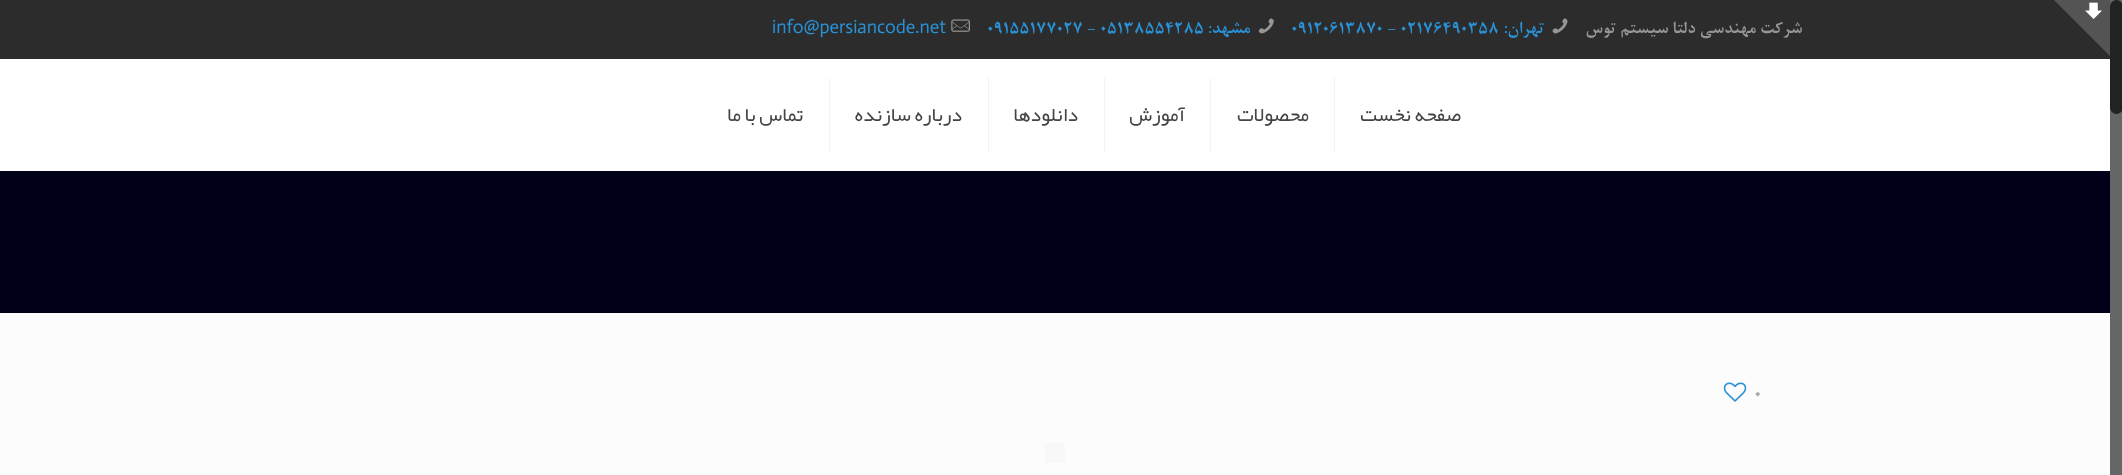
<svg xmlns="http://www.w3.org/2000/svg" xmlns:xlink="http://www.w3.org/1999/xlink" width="2122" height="475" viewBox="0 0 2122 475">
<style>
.cls-1{font:bold 18.75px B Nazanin;direction:rtl;fill:#969696}
.cls-2{font:bold 18.75px B Nazanin;direction:rtl;fill:#2991d6}
.cls-3{font:bold 18.75px B Nazanin;fill:#2991d6}
.cls-4{font:18.75px Actor;fill:#2991d6}
.cls-5{font:20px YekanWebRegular;direction:rtl;fill:#444444}
.cls-6{font:bold 21px B Nazanin;fill:#a8a8a8}
</style>
<rect width="100%" height="100%" fill="#fcfcfc"/>
<rect fill="#666666" x="2110" y="0" width="12" height="475"/>
<rect fill="#222222" x="2110" y="0" width="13" height="114" rx="6.5"/>
<rect fill="#2c2c2c" x="0" y="0" width="2110" height="59"/>
<path fill="#545454" d="M2110 0V56L2054 0Z"/>
<image xlink:href="image0.png" x="2085" y="2" width="17" height="17"/>
<rect fill="#000119" x="0" y="171" width="2110" height="142"/>
<image xlink:href="image1.png" x="1552" y="18" width="16" height="16"/>
<image xlink:href="image2.png" x="1258" y="18" width="16" height="16"/>
<image xlink:href="image3.png" x="951" y="19" width="19" height="13"/>
<rect fill="#ffffff" x="0" y="59" width="2110" height="112"/>
<rect fill="#f2f2f2" x="1334" y="78" width="1" height="75"/>
<rect fill="#f2f2f2" x="1210" y="78" width="1" height="75"/>
<rect fill="#f2f2f2" x="1104" y="78" width="1" height="75"/>
<rect fill="#f2f2f2" x="988" y="78" width="1" height="75"/>
<rect fill="#f2f2f2" x="829" y="78" width="1" height="75"/>
<image xlink:href="image4.png" x="1723" y="382" width="24" height="20"/>
<rect fill="#f8f8f8" x="1045" y="443" width="20" height="20"/>
<text class="cls-1" x="1802" y="33">شرکت مهندسی دلتا سیستم توس</text>
<text class="cls-2" x="1544" y="33">تهران:</text>
<text class="cls-3" x="1291" y="33">09120613870 - 02176490358</text>
<text class="cls-2" x="1250" y="33">مشهد:</text>
<text class="cls-3" x="987" y="33">09155177027 - 05138554285</text>
<text class="cls-4" x="772" y="33">info@persiancode.net</text>
<text class="cls-5" x="1461" y="121">صفحه نخست</text>
<text class="cls-5" x="1309" y="121">محصولات</text>
<text class="cls-5" x="1185" y="121">آموزش</text>
<text class="cls-5" x="1078" y="121">دانلودها</text>
<text class="cls-5" x="962" y="121">درباره سازنده</text>
<text class="cls-5" x="803" y="121">تماس با ما</text>
<text class="cls-6" x="1754" y="399">0</text>
</svg>
